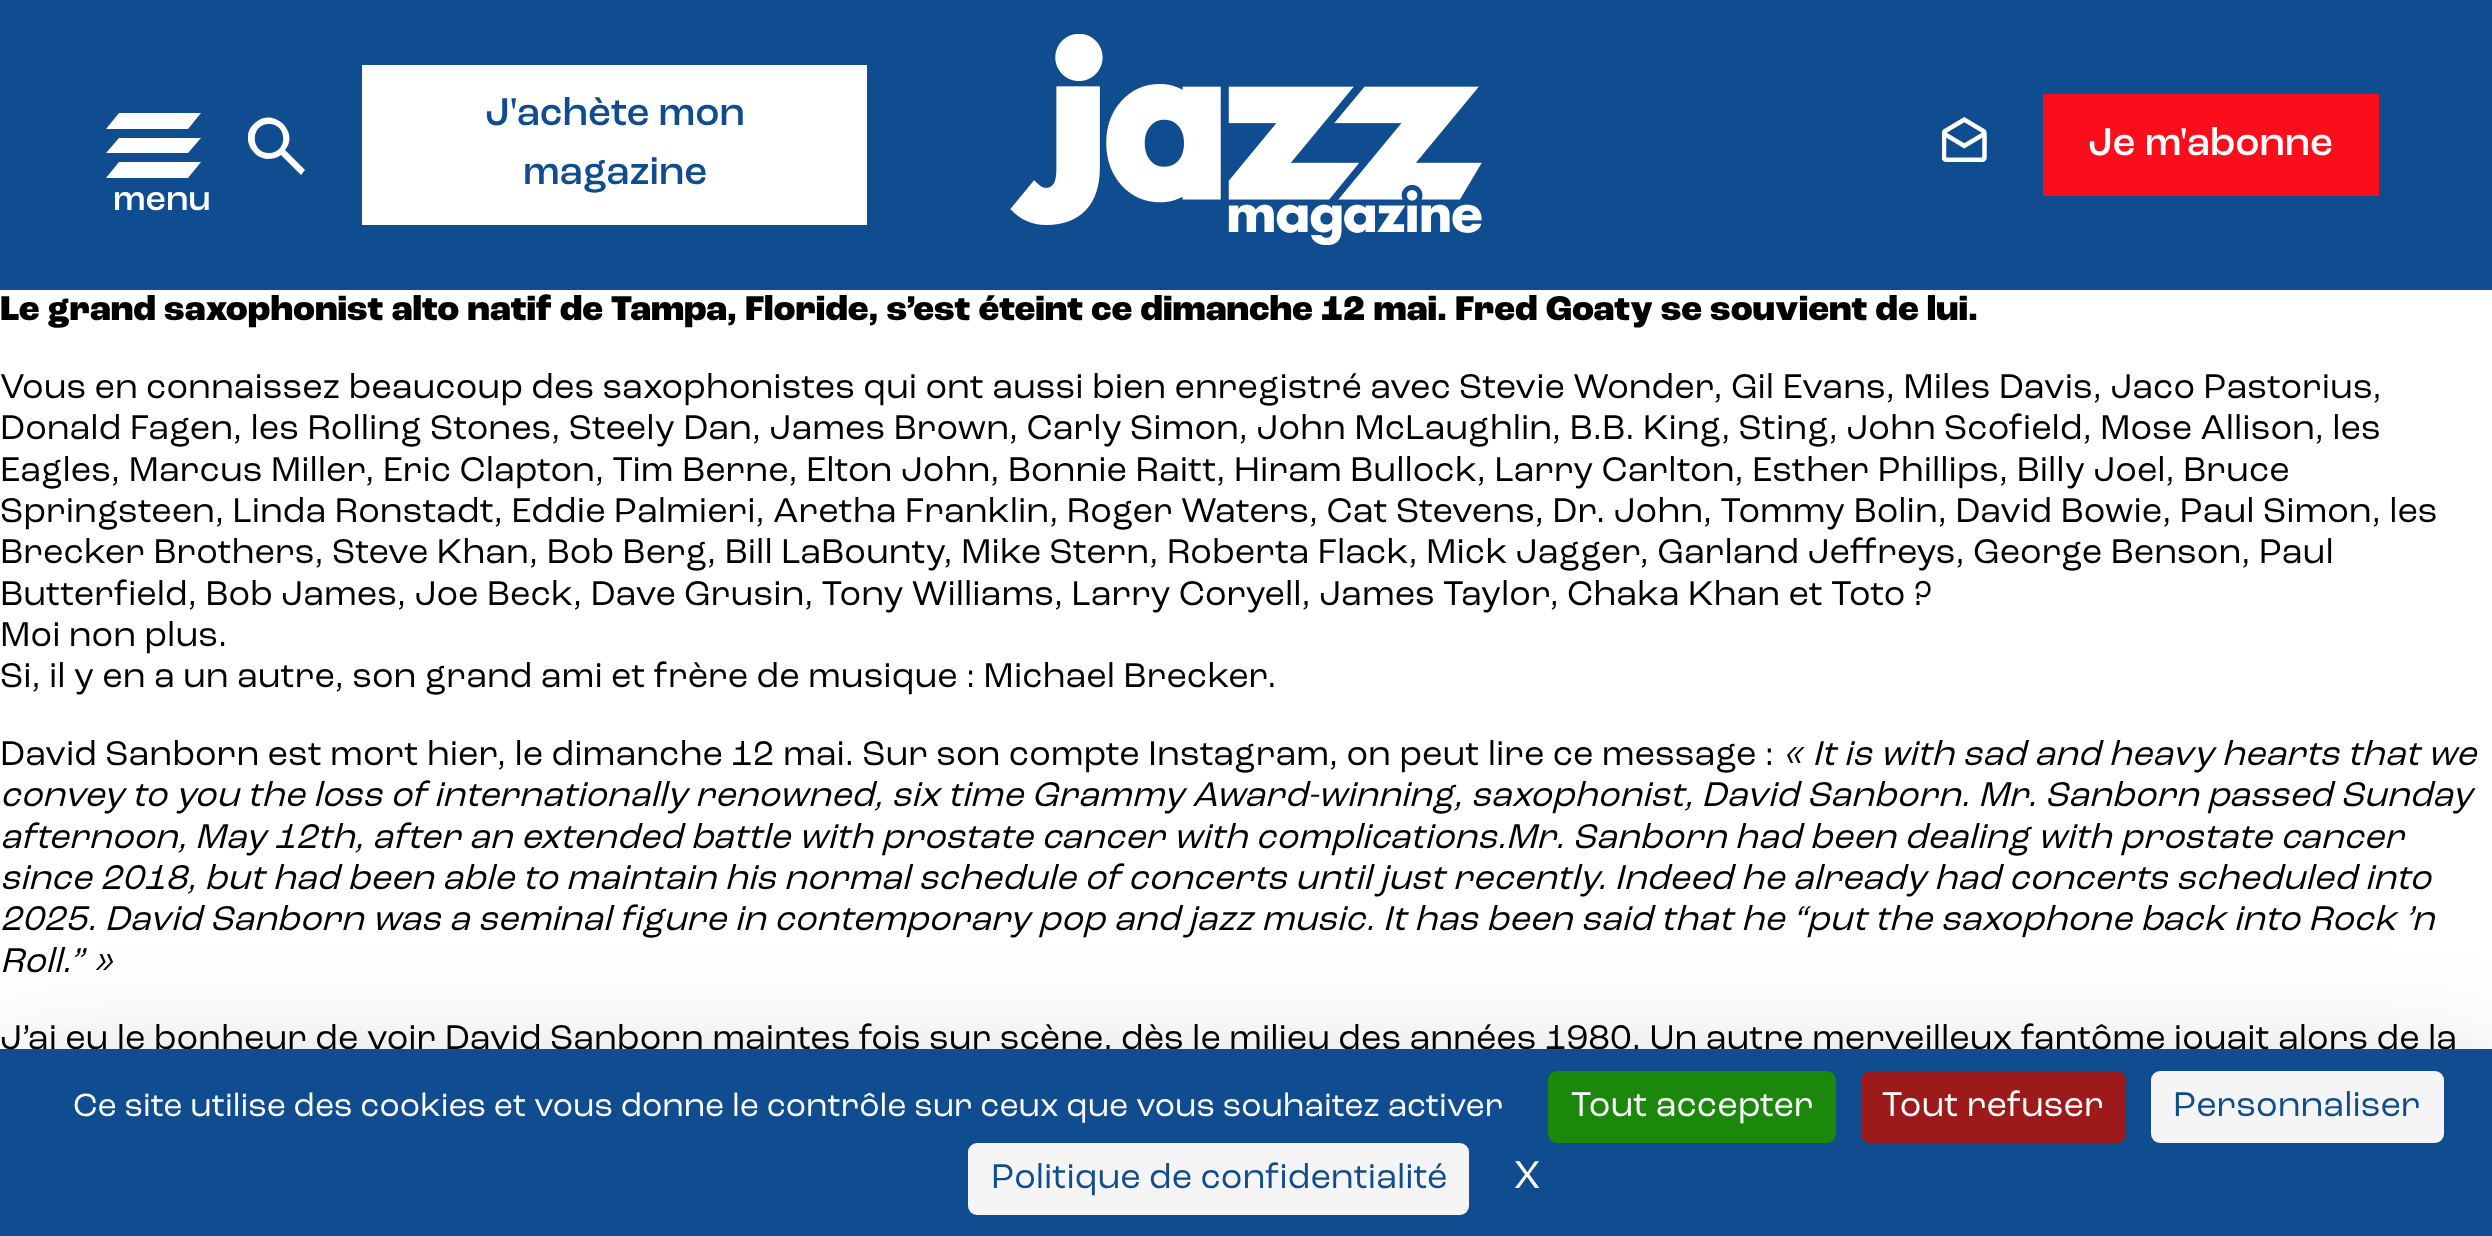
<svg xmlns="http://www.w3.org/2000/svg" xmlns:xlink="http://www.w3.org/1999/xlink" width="2492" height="1236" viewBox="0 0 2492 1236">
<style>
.cls-1{font:500 40.5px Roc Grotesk;fill:#104c90}
.cls-2{font:500 36px Roc Grotesk;fill:#ffffff}
.cls-3{font:500 40.5px Roc Grotesk;fill:#ffffff}
.cls-4{font:800 36px Roc Grotesk;fill:#000000}
.cls-5{font:36px Roc Grotesk;fill:#000000}
.cls-6{font:italic 36px Roc Grotesk;fill:#000000}
.cls-7{font:33.75px Roc Grotesk;fill:#ffffff}
.cls-8{font:36px Roc Grotesk;fill:#ffffff}
.cls-9{font:36px Roc Grotesk;fill:#104c90}
.cls-10{font:40.5px Roc Grotesk;fill:#ffffff}
</style>
<defs>
<clipPath id="clip1"><rect x="248" y="117" width="58" height="59"/></clipPath>
</defs>
<rect width="100%" height="100%" fill="#ffffff"/>
<rect fill="#104c90" x="0" y="0" width="2492" height="290"/>
<g clip-path="url(#clip1)">
<path fill="#ffffff" d="M301 175L281 155C277 158 272 159 267 159C261 158 256 156 253 151C249 147 247 140 248 134C249 129 252 125 256 122C274 107 300 132 285 150L305 170ZM269 153C288 153 288 124 269 124C250 124 250 153 269 153Z"/>
</g>
<rect fill="#ffffff" x="362" y="65" width="505" height="160"/>
<path fill="#ffffff" d="M119 113H201L188 129H106Z"/>
<path fill="#ffffff" d="M119 138H201L188 153H106Z"/>
<path fill="#ffffff" d="M119 162H201L188 178H106Z"/>
<image xlink:href="image0.png" x="1010" y="34" width="472" height="211"/>
<image xlink:href="image1.png" x="1942" y="117" width="45" height="45"/>
<rect fill="#fc0d1b" x="2043" y="94" width="336" height="102"/>
<rect fill="#000000" fill-opacity="0.25" filter="blur(67.5px)" x="0" y="1094" width="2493" height="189"/>
<text class="cls-1" x="485" y="125">J'achète mon</text>
<text class="cls-1" x="523" y="184">magazine</text>
<text class="cls-2" x="113" y="210">menu</text>
<text class="cls-3" x="2088" y="155">Je m'abonne</text>
<text class="cls-4" x="0" y="320">Le grand saxophonist alto natif de Tampa, Floride, s’est éteint ce dimanche 12 mai. Fred Goaty se souvient de lui.</text>
<text class="cls-5"><tspan x="0" y="398">Vous en connaissez beaucoup des saxophonistes qui ont aussi bien enregistré avec Stevie Wonder, Gil Evans, Miles Davis, Jaco Pastorius,</tspan><tspan x="0" y="439">Donald Fagen, les Rolling Stones, Steely Dan, James Brown, Carly Simon, John McLaughlin, B.B. King, Sting, John Scofield, Mose Allison, les</tspan><tspan x="0" y="481">Eagles, Marcus Miller, Eric Clapton, Tim Berne, Elton John, Bonnie Raitt, Hiram Bullock, Larry Carlton, Esther Phillips, Billy Joel, Bruce</tspan><tspan x="0" y="522">Springsteen, Linda Ronstadt, Eddie Palmieri, Aretha Franklin, Roger Waters, Cat Stevens, Dr. John, Tommy Bolin, David Bowie, Paul Simon, les</tspan><tspan x="0" y="563">Brecker Brothers, Steve Khan, Bob Berg, Bill LaBounty, Mike Stern, Roberta Flack, Mick Jagger, Garland Jeffreys, George Benson, Paul</tspan><tspan x="0" y="605">Butterfield, Bob James, Joe Beck, Dave Grusin, Tony Williams, Larry Coryell, James Taylor, Chaka Khan et Toto ?</tspan><tspan x="0" y="646">Moi non plus.</tspan><tspan x="0" y="687">Si, il y en a un autre, son grand ami et frère de musique : Michael Brecker.</tspan></text>
<text class="cls-5" x="0" y="765">David Sanborn est mort hier, le dimanche 12 mai. Sur son compte Instagram, on peut lire ce message :</text>
<text class="cls-6" x="1782" y="765">« It is with sad and heavy hearts that we</text>
<text class="cls-6"><tspan x="0" y="806">convey to you the loss of internationally renowned, six time Grammy Award-winning, saxophonist, David Sanborn. Mr. Sanborn passed Sunday</tspan><tspan x="0" y="848">afternoon, May 12th, after an extended battle with prostate cancer with complications.Mr. Sanborn had been dealing with prostate cancer</tspan><tspan x="0" y="889">since 2018, but had been able to maintain his normal schedule of concerts until just recently. Indeed he already had concerts scheduled into</tspan><tspan x="0" y="930">2025. David Sanborn was a seminal figure in contemporary pop and jazz music. It has been said that he “put the saxophone back into Rock ’n</tspan><tspan x="0" y="972">Roll.” »</tspan></text>
<text class="cls-5" x="0" y="1049">J’ai eu le bonheur de voir David Sanborn maintes fois sur scène, dès le milieu des années 1980. Un autre merveilleux fantôme jouait alors de la</text>
<rect fill="#104c90" x="0" y="1049" width="2492" height="187"/>
<text class="cls-7" x="73" y="1116">Ce site utilise des cookies et vous donne le contrôle sur ceux que vous souhaitez activer</text>
<rect fill="#1b870b" x="1548" y="1071" width="288" height="72" rx="9"/>
<text class="cls-8" x="1571" y="1116">Tout accepter</text>
<rect fill="#9c1a1a" x="1861" y="1071" width="265" height="72" rx="9"/>
<text class="cls-8" x="1882" y="1116">Tout refuser</text>
<rect fill="#f5f5f5" x="2151" y="1071" width="293" height="72" rx="9"/>
<text class="cls-9" x="2173" y="1116">Personnaliser</text>
<rect fill="#f5f5f5" x="968" y="1143" width="501" height="72" rx="9"/>
<text class="cls-9" x="991" y="1188">Politique de confidentialité</text>
<text class="cls-10" x="1514" y="1188">X</text>
</svg>
